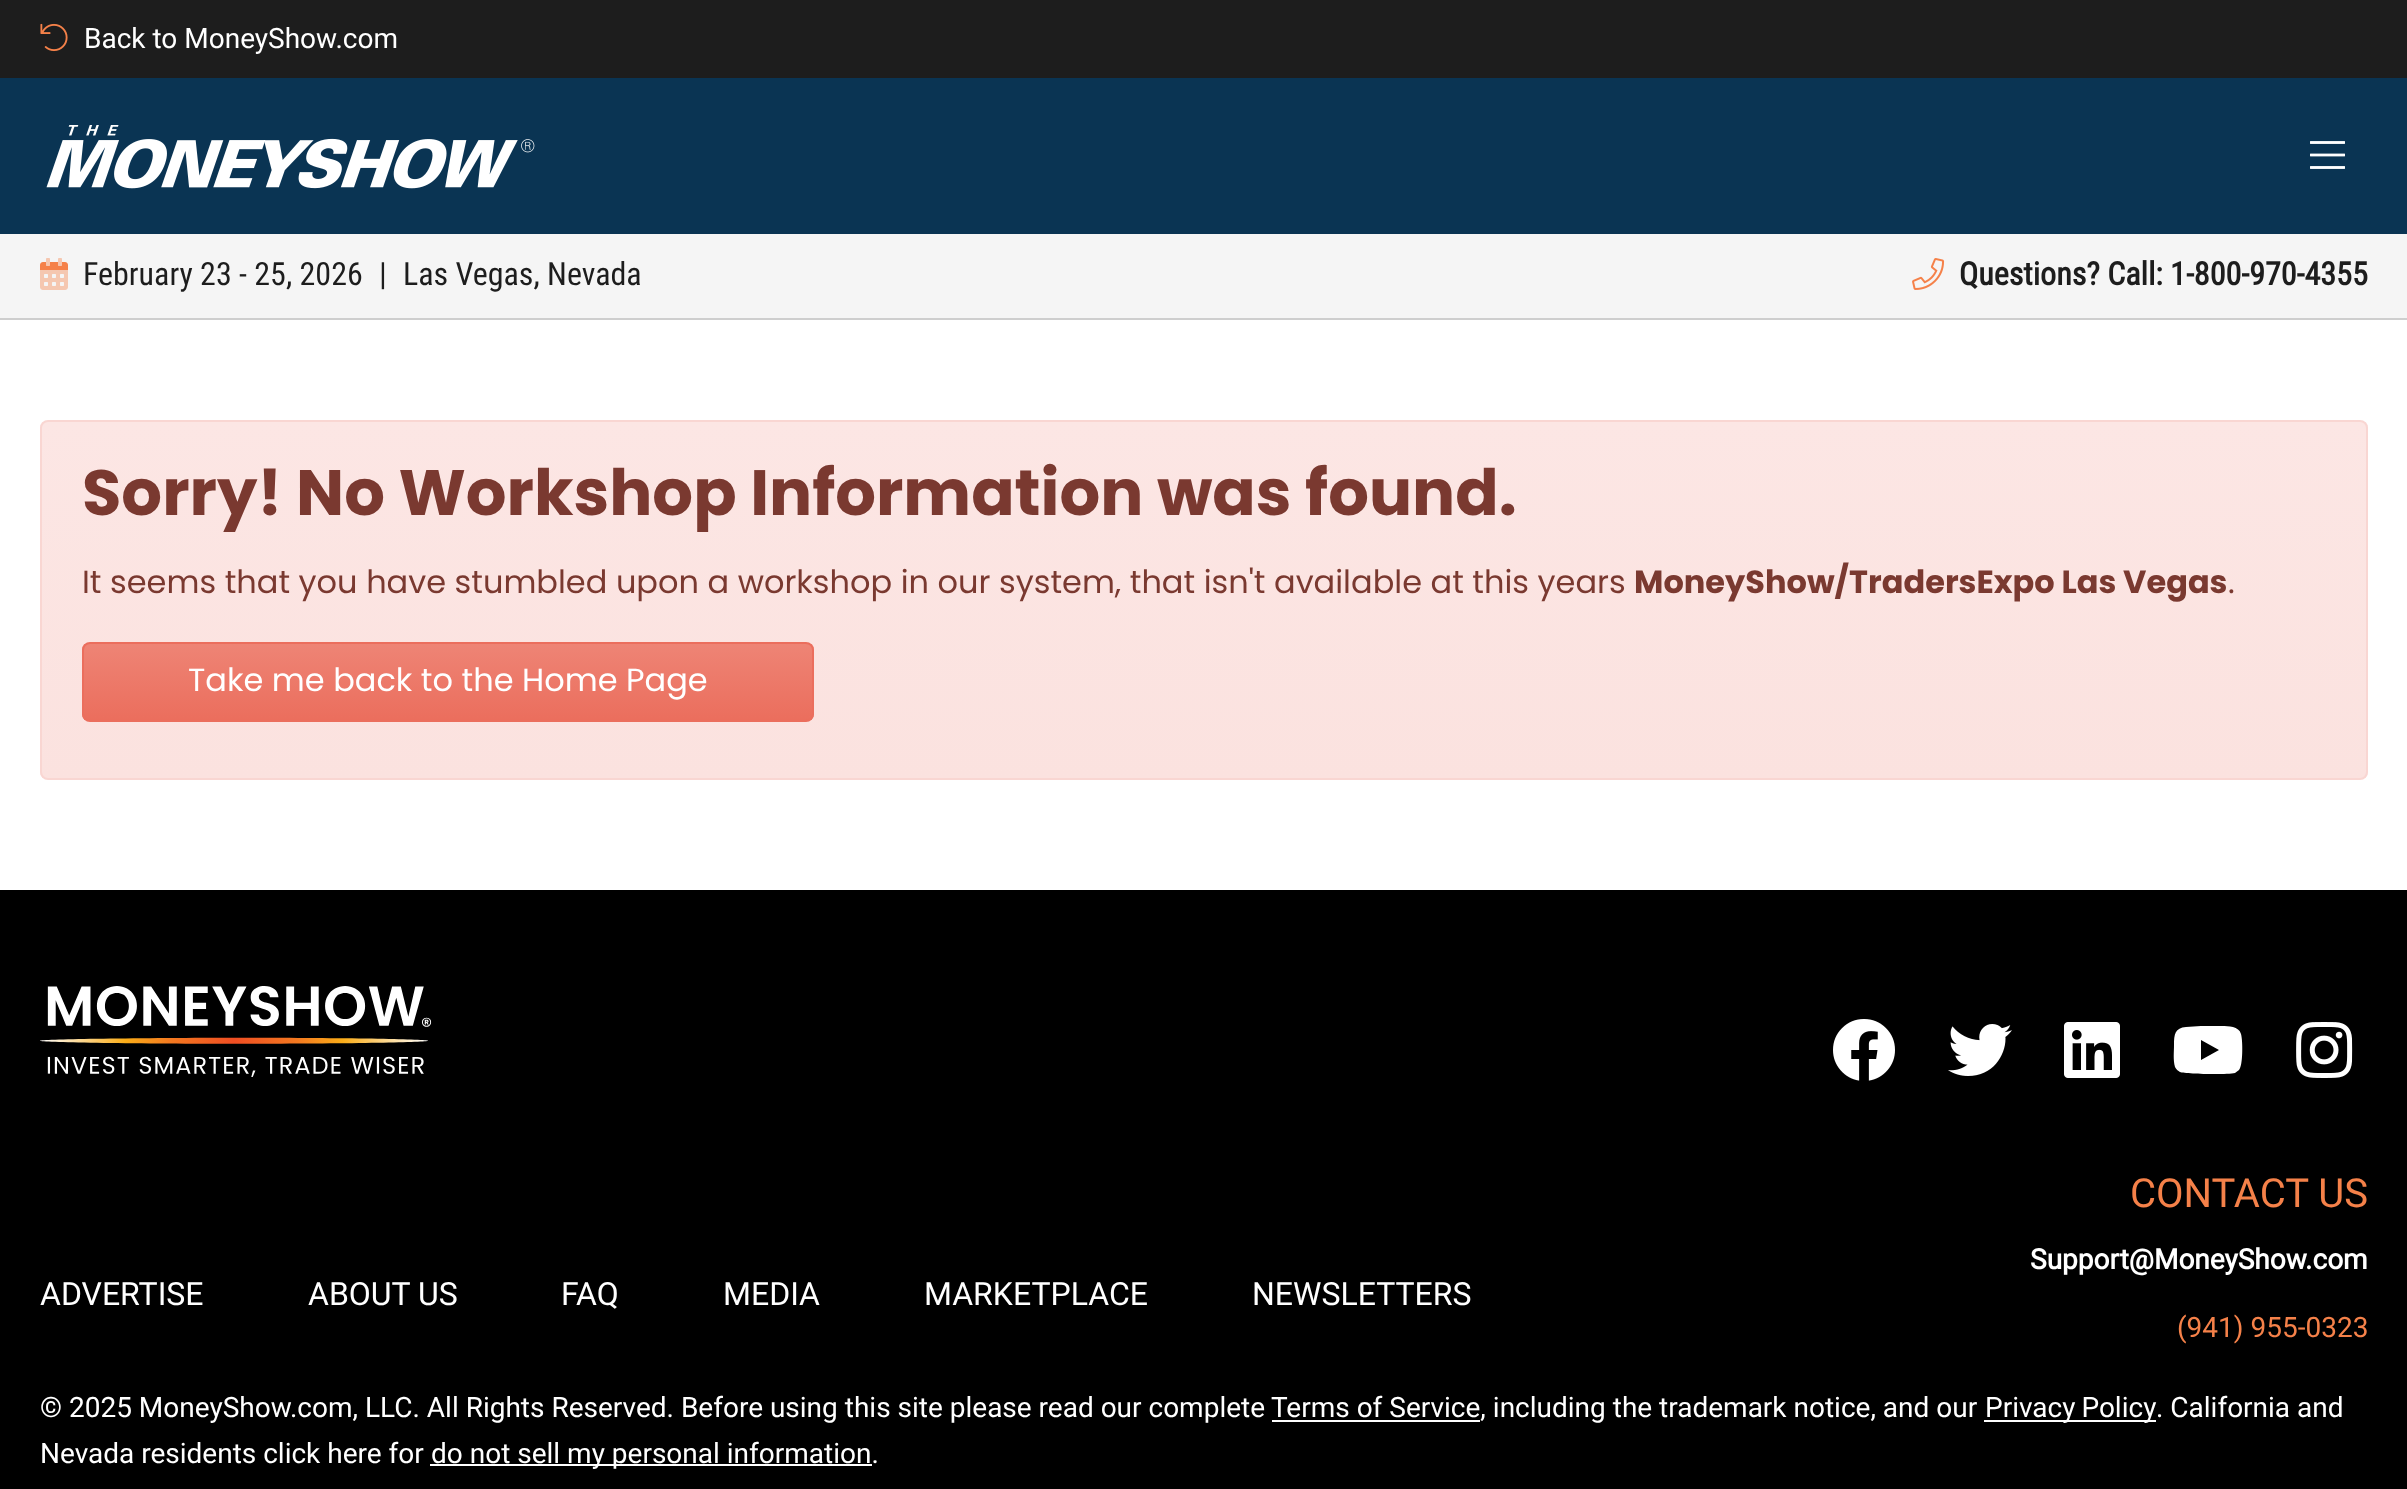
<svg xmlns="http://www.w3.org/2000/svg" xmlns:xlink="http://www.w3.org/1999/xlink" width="2407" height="1489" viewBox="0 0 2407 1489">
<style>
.cls-1{font:28px Roboto;fill:#ffffff}
.cls-2{font:32px Roboto Condensed;fill:#1d1d1d}
.cls-3{font:bold 32px Roboto Condensed;fill:#1d1d1d}
.cls-4{font:bold 64px Poppins;fill:#7a3930}
.cls-5{font:32px Poppins;fill:#7a3930}
.cls-6{font:bold 32px Poppins;fill:#7a3930}
.cls-7{font:32px Poppins;fill:#ffffff}
.cls-8{font:32px Roboto;fill:#ffffff}
.cls-9{font:40px Roboto;fill:#f58149}
.cls-10{font:bold 28px Roboto;fill:#ffffff}
.cls-11{font:28px Roboto;fill:#f58149}
</style>
<defs>
<clipPath id="clip1"><rect x="40" y="420" width="2328" height="360" rx="8"/></clipPath>
<linearGradient id="g1" gradientUnits="userSpaceOnUse" x1="1204" y1="422" x2="1204" y2="778"><stop offset="0" stop-color="#fce6e4"/><stop offset="1" stop-color="#fbe2df"/></linearGradient>
<clipPath id="clip2"><rect x="82" y="642" width="732" height="80" rx="8"/></clipPath>
<linearGradient id="g2" gradientUnits="userSpaceOnUse" x1="448" y1="644" x2="448" y2="720"><stop offset="0" stop-color="#ee8475"/><stop offset="1" stop-color="#eb6e5d"/></linearGradient>
</defs>
<rect width="100%" height="100%" fill="#ffffff"/>
<rect fill="#1d1d1d" x="0" y="0" width="2407" height="78"/>
<image xlink:href="image0.png" x="40" y="23" width="28" height="29"/>
<rect fill="#0a3453" x="0" y="78" width="2407" height="156"/>
<image xlink:href="image1.png" x="46" y="125" width="489" height="64"/>
<image xlink:href="image2.png" x="2310" y="141" width="35" height="28"/>
<rect fill="#f5f5f5" x="0" y="234" width="2407" height="84"/>
<rect fill="#cecece" x="0" y="318" width="2407" height="2"/>
<image xlink:href="image4.png" x="40" y="262" width="28" height="8"/>
<image xlink:href="image3.png" x="40" y="258" width="28" height="32"/>
<image xlink:href="image5.png" x="1912" y="258" width="33" height="32"/>
<g clip-path="url(#clip1)">
<rect fill="url(#g1)" x="40" y="422" width="2328" height="356"/>
</g>
<rect fill="none" stroke="#f9d6d2" stroke-width="2" x="41" y="421" width="2326" height="358" rx="7"/>
<g clip-path="url(#clip2)">
<rect fill="url(#g2)" x="82" y="644" width="732" height="76"/>
</g>
<rect fill="none" stroke="#eb6e5d" stroke-width="2" x="83" y="643" width="730" height="78" rx="7"/>
<rect fill="#000000" x="0" y="890" width="2407" height="599"/>
<image xlink:href="image6.png" x="40" y="986" width="392" height="91"/>
<image xlink:href="image7.png" x="1833" y="1019" width="62" height="62"/>
<image xlink:href="image8.png" x="1948" y="1024" width="64" height="52"/>
<image xlink:href="image9.png" x="2064" y="1022" width="56" height="56"/>
<path fill="#ffffff" d="M2241 1034C2243 1041 2243 1066 2239 1070L2235 1073C2226 1075 2185 1074 2180 1072C2178 1071 2176 1069 2175 1067C2173 1060 2174 1052 2174 1045C2174 1034 2175 1028 2186 1027L2201 1026H2222C2228 1026 2239 1026 2241 1034ZM2201 1060L2219 1050L2201 1040Z"/>
<image xlink:href="image10.png" x="2296" y="1022" width="57" height="56"/>
<rect fill="#ffffff" x="1272" y="1420" width="208" height="2"/>
<rect fill="#ffffff" x="1984" y="1420" width="172" height="2"/>
<rect fill="#ffffff" x="430" y="1464" width="442" height="2"/>
<text class="cls-1" x="84" y="48">Back to MoneyShow.com</text>
<text class="cls-2" x="83" y="285">February 23 - 25, 2026</text>
<text class="cls-2" x="379" y="285">|</text>
<text class="cls-2" x="403" y="285">Las Vegas, Nevada</text>
<text class="cls-3" x="1959" y="285">Questions? Call: 1-800-970-4355</text>
<text class="cls-4" x="82" y="515">Sorry! No Workshop Information was found.</text>
<text class="cls-5" x="82" y="593">It seems that you have stumbled upon a workshop in our system, that isn't available at this years</text>
<text class="cls-6" x="1634" y="593">MoneyShow/TradersExpo Las Vegas</text>
<text class="cls-5" x="2228" y="593">.</text>
<text class="cls-7" x="188" y="691">Take me back to the Home Page</text>
<text class="cls-8" x="40" y="1305">ADVERTISE</text>
<text class="cls-8" x="308" y="1305">ABOUT US</text>
<text class="cls-8" x="561" y="1305">FAQ</text>
<text class="cls-8" x="723" y="1305">MEDIA</text>
<text class="cls-8" x="924" y="1305">MARKETPLACE</text>
<text class="cls-8" x="1252" y="1305">NEWSLETTERS</text>
<text class="cls-9" x="2130" y="1207">CONTACT US</text>
<text class="cls-10" x="2030" y="1269">Support@MoneyShow.com</text>
<text class="cls-11" x="2177" y="1337">(941) 955-0323</text>
<text class="cls-1" x="40" y="1417">© 2025 MoneyShow.com, LLC. All Rights Reserved. Before using this site please read our complete</text>
<text class="cls-1" x="1271" y="1417">Terms of Service, including the trademark notice, and our</text>
<text class="cls-1" x="1985" y="1417" word-spacing="-1">Privacy Policy</text>
<text class="cls-1" x="2156" y="1417">. California and</text>
<text class="cls-1" x="40" y="1463">Nevada residents click here for</text>
<text class="cls-1" x="431" y="1463">do not sell my personal information.</text>
</svg>
